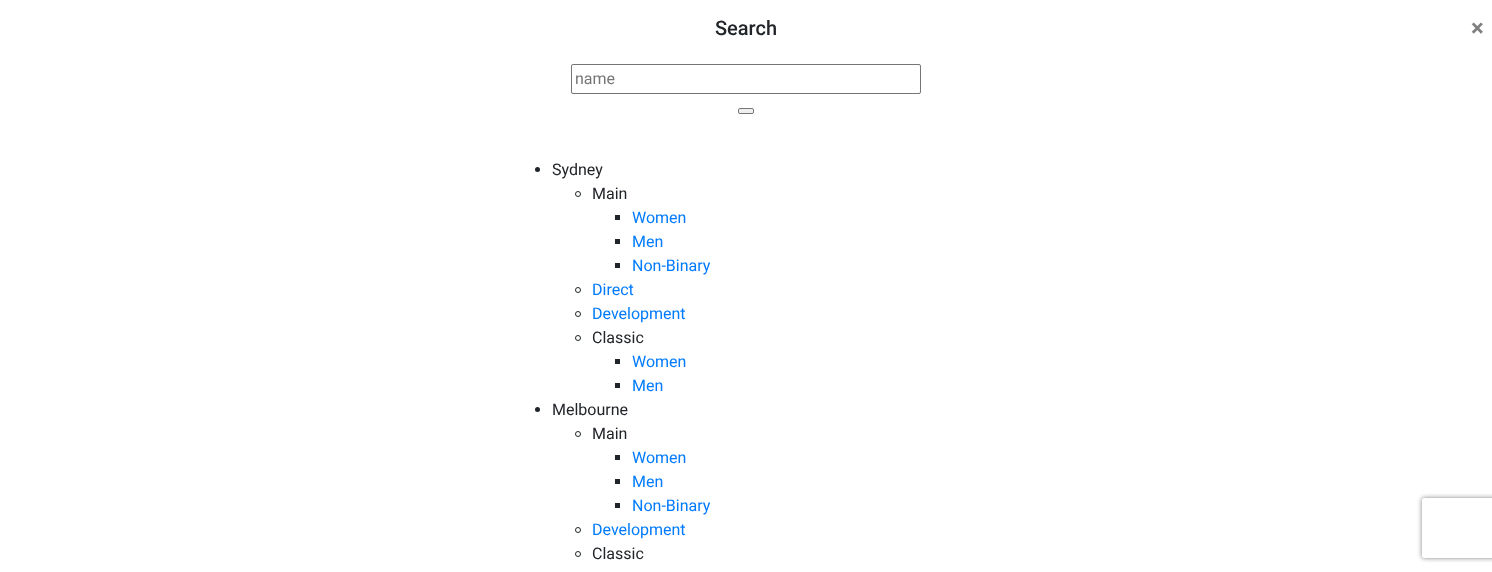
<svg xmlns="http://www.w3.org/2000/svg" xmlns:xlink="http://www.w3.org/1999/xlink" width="1492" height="572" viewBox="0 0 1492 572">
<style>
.cls-1{font:500 20px Roboto;fill:#212529}
.cls-2{font:16px Roboto;fill:#757575}
.cls-3{font:bold 24px Roboto;fill:#808080}
.cls-4{font:16px Roboto;fill:#212529}
.cls-5{font:16px Roboto;fill:#007bff}
</style>
<defs>
<clipPath id="clip1"><path d="M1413 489H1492V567H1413ZM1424 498H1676C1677 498 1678 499 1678 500V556C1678 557 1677 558 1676 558H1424C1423 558 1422 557 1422 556V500C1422 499 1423 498 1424 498Z" clip-rule="evenodd"/></clipPath>
</defs>
<rect width="100%" height="100%" fill="#ffffff"/>
<rect fill="none" stroke="#767676" x="571.5" y="64.5" width="349" height="29" rx="1.5"/>
<rect fill="#efefef" stroke="#767676" x="738.5" y="108.5" width="15" height="5" rx="1.5"/>
<circle fill="#212529" cx="537.5" cy="169.5" r="2.5"/>
<circle fill="none" stroke="#212529" cx="578" cy="194" r="2.5"/>
<rect fill="#212529" x="615" y="215" width="5" height="5"/>
<rect fill="#212529" x="615" y="239" width="5" height="5"/>
<rect fill="#212529" x="615" y="263" width="5" height="5"/>
<circle fill="none" stroke="#212529" cx="578" cy="290" r="2.5"/>
<circle fill="none" stroke="#212529" cx="578" cy="314" r="2.5"/>
<circle fill="none" stroke="#212529" cx="578" cy="338" r="2.5"/>
<rect fill="#212529" x="615" y="359" width="5" height="5"/>
<rect fill="#212529" x="615" y="383" width="5" height="5"/>
<circle fill="#212529" cx="537.5" cy="409.5" r="2.5"/>
<circle fill="none" stroke="#212529" cx="578" cy="434" r="2.5"/>
<rect fill="#212529" x="615" y="455" width="5" height="5"/>
<rect fill="#212529" x="615" y="479" width="5" height="5"/>
<rect fill="#212529" x="615" y="503" width="5" height="5"/>
<circle fill="none" stroke="#212529" cx="578" cy="530" r="2.5"/>
<circle fill="none" stroke="#212529" cx="578" cy="554" r="2.5"/>
<g clip-path="url(#clip1)">
<rect fill="#808080" filter="blur(2.5px)" x="1422" y="498" width="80" height="60" rx="2"/>
</g>
<text class="cls-1" x="715" y="35">Search</text>
<text class="cls-2" x="575" y="84">name</text>
<text class="cls-3" x="1471" y="36">×</text>
<text class="cls-4" x="552" y="175">Sydney</text>
<text class="cls-4" x="592" y="199">Main</text>
<text class="cls-5"><tspan x="632" y="223">Women</tspan><tspan x="632" y="247">Men</tspan><tspan x="632" y="271">Non-Binary</tspan></text>
<text class="cls-5"><tspan x="592" y="295">Direct</tspan><tspan x="592" y="319">Development</tspan></text>
<text class="cls-4" x="592" y="343">Classic</text>
<text class="cls-5"><tspan x="632" y="367">Women</tspan><tspan x="632" y="391">Men</tspan></text>
<text class="cls-4" x="552" y="415">Melbourne</text>
<text class="cls-4" x="592" y="439">Main</text>
<text class="cls-5"><tspan x="632" y="463">Women</tspan><tspan x="632" y="487">Men</tspan><tspan x="632" y="511">Non-Binary</tspan></text>
<text class="cls-5" x="592" y="535">Development</text>
<text class="cls-4" x="592" y="559">Classic</text>
</svg>
